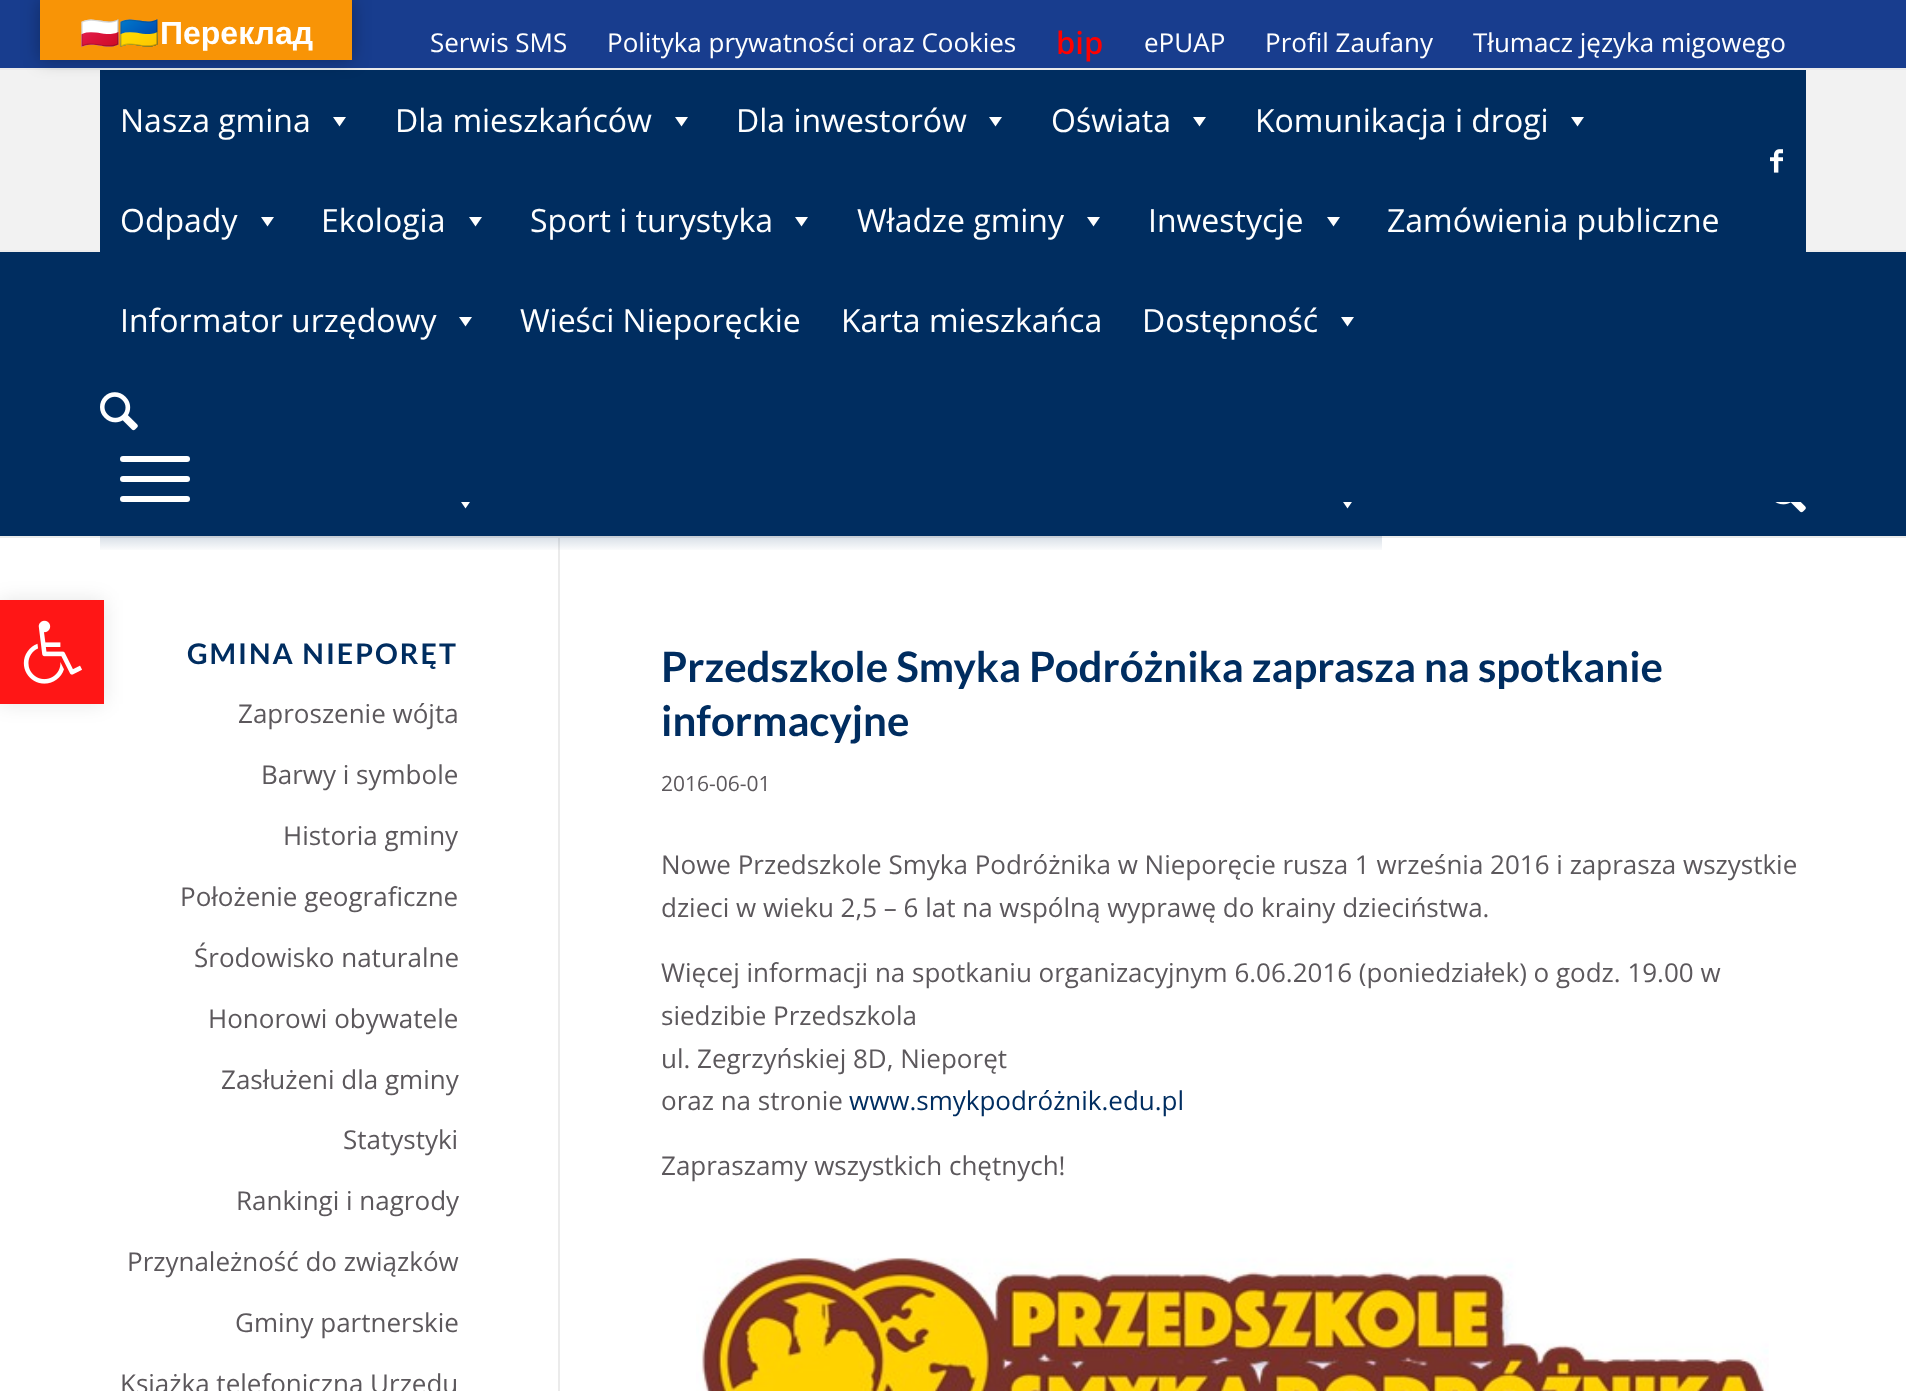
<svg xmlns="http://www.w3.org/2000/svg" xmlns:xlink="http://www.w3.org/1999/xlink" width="1906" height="1391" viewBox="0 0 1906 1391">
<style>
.cls-1{font:bold 32px Noto Color Emoji;fill:#ffffff}
.cls-2{font:bold 32px Liberation Sans;fill:#ffffff}
.cls-3{font:26px Open Sans;fill:#ffffff}
.cls-4{font:600 31px Open Sans;fill:#ff0000}
.cls-5{font:32px Open Sans;fill:#ffffff}
.cls-6{font:bold 28.5px Lato;letter-spacing:2px;fill:#002d60}
.cls-7{font:26px Open Sans;fill:#5c585c}
.cls-8{font:bold 42px Lato;fill:#002d60}
.cls-9{font:21px Open Sans;fill:#5c585c}
.cls-10{font:26px Open Sans;fill:#002d60}
</style>
<defs>
<linearGradient id="g1" gradientUnits="userSpaceOnUse" x1="300" y1="452" x2="300" y2="552"><stop offset="0" stop-color="#002d60"/><stop offset="1" stop-color="#002d60" stop-opacity="0"/></linearGradient>
<linearGradient id="g2" gradientUnits="userSpaceOnUse" x1="1252" y1="452" x2="1252" y2="552"><stop offset="0" stop-color="#002d60"/><stop offset="1" stop-color="#002d60" stop-opacity="0"/></linearGradient>
<linearGradient id="g3" gradientUnits="userSpaceOnUse" x1="661" y1="452" x2="661" y2="552"><stop offset="0" stop-color="#002d60"/><stop offset="1" stop-color="#002d60" stop-opacity="0"/></linearGradient>
<linearGradient id="g4" gradientUnits="userSpaceOnUse" x1="972" y1="452" x2="972" y2="552"><stop offset="0" stop-color="#002d60"/><stop offset="1" stop-color="#002d60" stop-opacity="0"/></linearGradient>
</defs>
<rect width="100%" height="100%" fill="#ffffff"/>
<rect fill="#183d8e" x="0" y="0" width="1906" height="68"/>
<rect fill="#ebebeb" x="0" y="68" width="1906" height="2"/>
<rect fill="#f2f2f2" x="0" y="70" width="1906" height="180"/>
<rect fill="#002d60" x="0" y="252" width="1906" height="284"/>
<rect fill="#ebebeb" x="0" y="250" width="1906" height="2"/>
<path fill="#ffffff" d="M472 499L465.5 508.5L459 499Z"/>
<path fill="#ffffff" d="M1354 499L1347.5 508.5L1341 499Z"/>
<rect fill="#002d60" x="100" y="70" width="1706" height="432"/>
<rect fill="#000000" fill-opacity="0.3" filter="blur(9px)" x="40" y="0" width="312" height="60"/>
<rect fill="#f89406" x="40" y="0" width="312" height="60"/>
<rect fill="#000000" fill-opacity="0.1" filter="blur(10px)" x="0" y="600" width="104" height="104"/>
<rect fill="#ff1616" x="0" y="600" width="104" height="104"/>
<image xlink:href="image0.png" x="23" y="620" width="59" height="64"/>
<rect fill="#ebebeb" x="0" y="536" width="1906" height="2"/>
<path fill="#ffffff" d="M346 117L339.5 126.5L333 117Z"/>
<path fill="#ffffff" d="M688 117L681.5 126.5L675 117Z"/>
<path fill="#ffffff" d="M1002 117L995.5 126.5L989 117Z"/>
<path fill="#ffffff" d="M1206 117L1199.5 126.5L1193 117Z"/>
<path fill="#ffffff" d="M1584 117L1577.5 126.5L1571 117Z"/>
<path fill="#ffffff" d="M274 217L267.5 226.5L261 217Z"/>
<path fill="#ffffff" d="M482 217L475.5 226.5L469 217Z"/>
<path fill="#ffffff" d="M808 217L801.5 226.5L795 217Z"/>
<path fill="#ffffff" d="M1100 217L1093.5 226.5L1087 217Z"/>
<path fill="#ffffff" d="M1340 217L1333.5 226.5L1327 217Z"/>
<path fill="#ffffff" d="M472 317L465.5 326.5L459 317Z"/>
<path fill="#ffffff" d="M1354 317L1347.5 326.5L1341 317Z"/>
<image xlink:href="image1.png" x="100" y="392" width="38" height="39"/>
<rect fill="#ffffff" x="120" y="476" width="70" height="6" rx="3"/>
<rect fill="#ffffff" x="120" y="456" width="70" height="6" rx="3"/>
<rect fill="#ffffff" x="120" y="496" width="70" height="6" rx="3"/>
<image xlink:href="image2.png" x="1770" y="149" width="13" height="24"/>
<rect fill="url(#g1)" x="100" y="536" width="400" height="14"/>
<rect fill="url(#g2)" x="1122" y="536" width="260" height="14"/>
<image xlink:href="image3.png" x="1775" y="502" width="31" height="11"/>
<rect fill="#ebebeb" x="558" y="538" width="2" height="853"/>
<rect fill="url(#g3)" x="500" y="536" width="322" height="14"/>
<rect fill="url(#g4)" x="822" y="536" width="300" height="14"/>
<image xlink:href="image4.png" x="696" y="1257" width="1073" height="134"/>
<text class="cls-1" x="80" y="44">🇵🇱🇺🇦</text>
<text class="cls-2" x="160" y="44">Переклад</text>
<text class="cls-3" x="430" y="52">Serwis SMS</text>
<text class="cls-3" x="607" y="52">Polityka prywatności oraz Cookies</text>
<text class="cls-4" x="1056" y="54">bip</text>
<text class="cls-3" x="1144" y="52">ePUAP</text>
<text class="cls-3" x="1265" y="52">Profil Zaufany</text>
<text class="cls-3" x="1473" y="52">Tłumacz języka migowego</text>
<text class="cls-5" x="120" y="132">Nasza gmina</text>
<text class="cls-5" x="395" y="132">Dla mieszkańców</text>
<text class="cls-5" x="736" y="132">Dla inwestorów</text>
<text class="cls-5" x="1051" y="132">Oświata</text>
<text class="cls-5" x="1255" y="132">Komunikacja i drogi</text>
<text class="cls-5" x="120" y="232">Odpady</text>
<text class="cls-5" x="321" y="232">Ekologia</text>
<text class="cls-5" x="530" y="232">Sport i turystyka</text>
<text class="cls-5" x="857" y="232">Władze gminy</text>
<text class="cls-5" x="1148" y="232">Inwestycje</text>
<text class="cls-5" x="1387" y="232">Zamówienia publiczne</text>
<text class="cls-5" x="120" y="332">Informator urzędowy</text>
<text class="cls-5" x="520" y="332">Wieści Nieporęckie</text>
<text class="cls-5" x="841" y="332">Karta mieszkańca</text>
<text class="cls-5" x="1142" y="332">Dostępność</text>
<text class="cls-6" x="187" y="664">GMINA NIEPORĘT</text>
<text class="cls-7" x="238" y="723">Zaproszenie wójta</text>
<text class="cls-7" x="261" y="784">Barwy i symbole</text>
<text class="cls-7" x="283" y="845">Historia gminy</text>
<text class="cls-7" x="180" y="906">Położenie geograficzne</text>
<text class="cls-7" x="194" y="967">Środowisko naturalne</text>
<text class="cls-7" x="208" y="1028">Honorowi obywatele</text>
<text class="cls-7" x="221" y="1089">Zasłużeni dla gminy</text>
<text class="cls-7" x="343" y="1149">Statystyki</text>
<text class="cls-7" x="236" y="1210">Rankingi i nagrody</text>
<text class="cls-7" x="127" y="1271">Przynależność do związków</text>
<text class="cls-7" x="235" y="1332">Gminy partnerskie</text>
<text class="cls-7" x="120" y="1393">Książka telefoniczna Urzędu</text>
<text class="cls-8"><tspan x="661" y="682">Przedszkole Smyka Podróżnika zaprasza na spotkanie</tspan><tspan x="661" y="736">informacyjne</tspan></text>
<text class="cls-9" x="661" y="791">2016-06-01</text>
<text class="cls-7"><tspan x="661" y="874">Nowe Przedszkole Smyka Podróżnika w Nieporęcie rusza 1 września 2016 i zaprasza wszystkie</tspan><tspan x="661" y="917">dzieci w wieku 2,5 – 6 lat na wspólną wyprawę do krainy dzieciństwa.</tspan></text>
<text class="cls-7"><tspan x="661" y="982">Więcej informacji na spotkaniu organizacyjnym 6.06.2016 (poniedziałek) o godz. 19.00 w</tspan><tspan x="661" y="1025">siedzibie Przedszkola</tspan><tspan x="661" y="1068">ul. Zegrzyńskiej 8D, Nieporęt</tspan><tspan x="661" y="1110">oraz na stronie</tspan></text>
<text class="cls-10" x="849" y="1110">www.smykpodróżnik.edu.pl</text>
<text class="cls-7" x="661" y="1175">Zapraszamy wszystkich chętnych!</text>
</svg>
